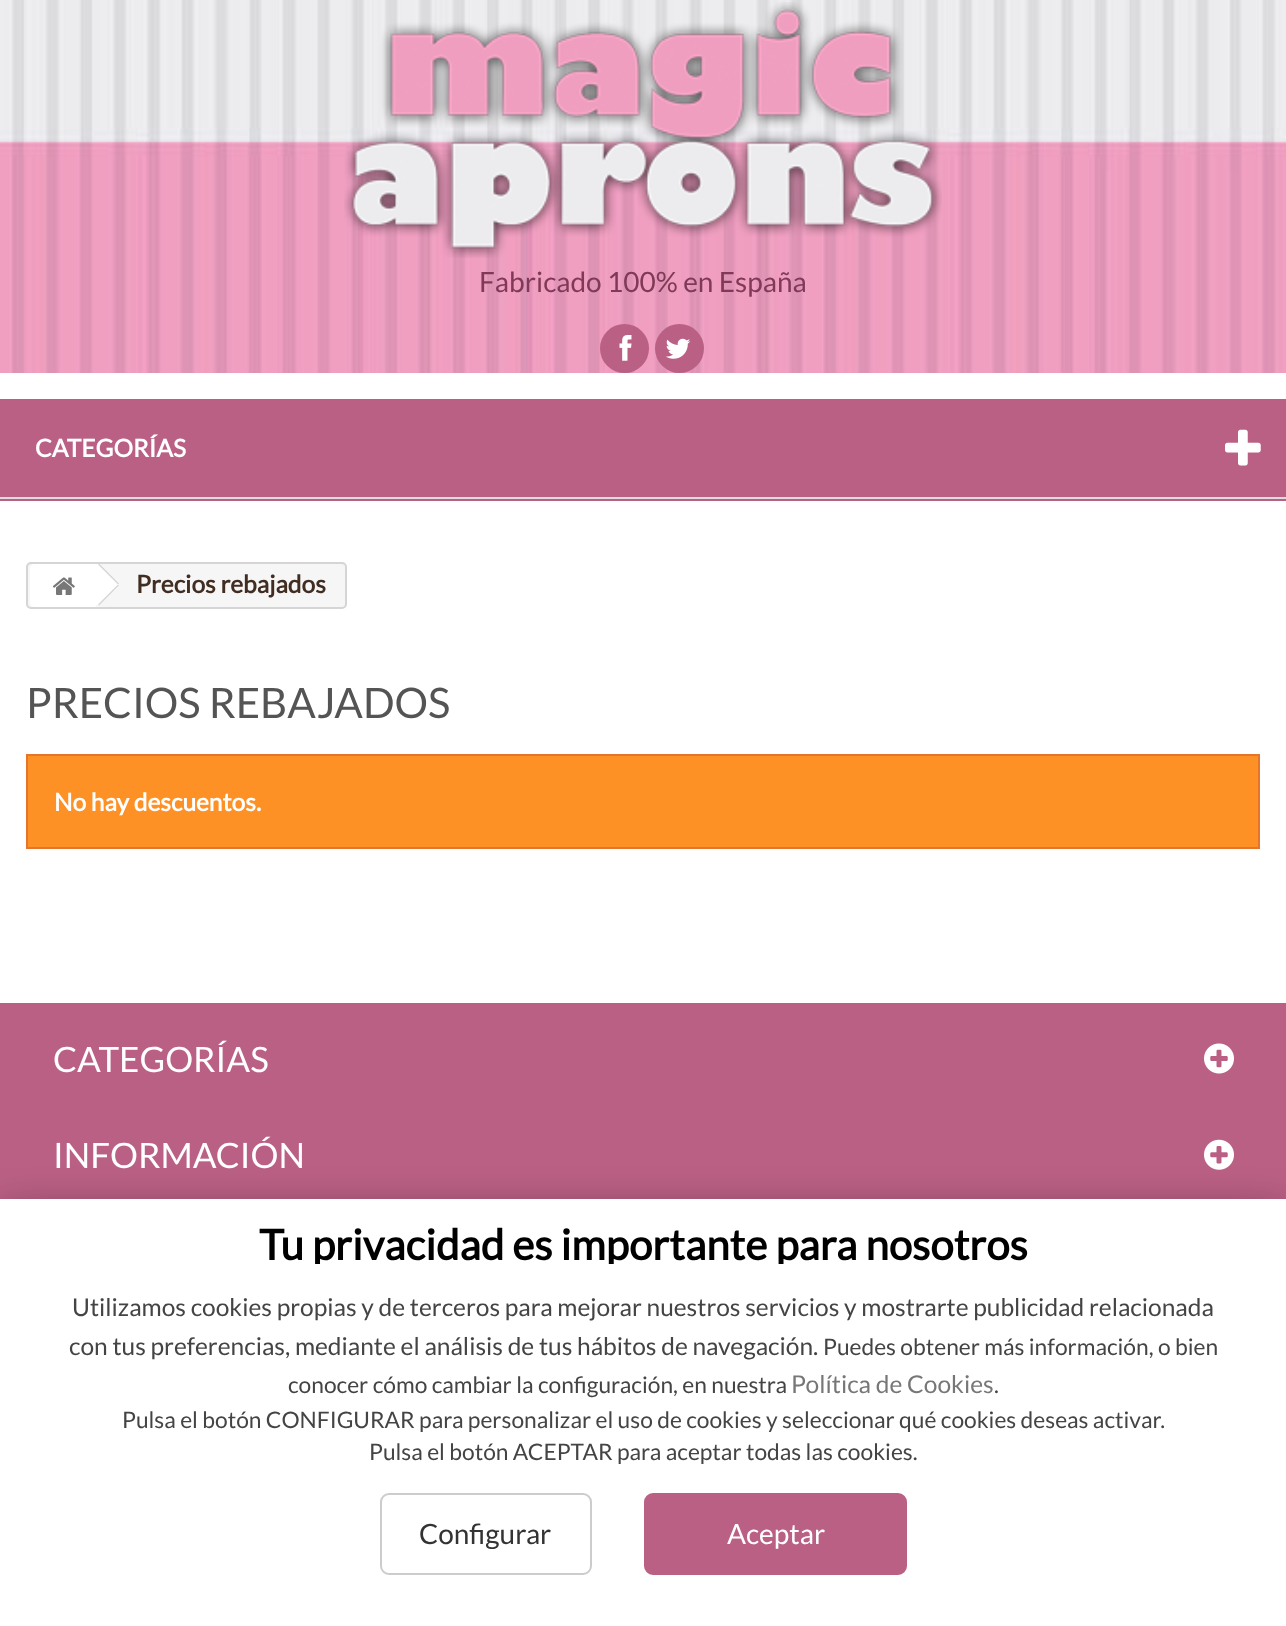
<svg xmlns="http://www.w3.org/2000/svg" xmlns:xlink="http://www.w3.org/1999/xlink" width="1286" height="1626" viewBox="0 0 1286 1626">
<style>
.cls-1{font:28px Lato;fill:#803a57}
.cls-2{font:bold 24.5px Lato;fill:#ffffff}
.cls-3{font:bold 24.5px Lato;fill:#412d22}
.cls-4{font:42px Lato;fill:#555454}
.cls-5{font:35px Lato;fill:#ffffff}
.cls-6{font:bold 42px Lato;fill:#000000}
.cls-7{font:24.5px Lato;fill:#444444}
.cls-8{font:22.75px Lato;fill:#444444}
.cls-9{font:24.5px Lato;fill:#777777}
.cls-10{font:28px Lato;fill:#333333}
.cls-11{font:28px Lato;fill:#ffffff}
</style>
<defs>
<clipPath id="clip1"><rect x="26" y="1225" width="1234" height="39"/></clipPath>
</defs>
<rect width="100%" height="100%" fill="#ffffff"/>
<image xlink:href="image0.png" x="0" y="0" width="1286" height="373"/>
<image xlink:href="image1.png" x="344" y="2" width="598" height="256"/>
<circle fill="#ba6085" cx="624.5" cy="348.5" r="24.5"/>
<image xlink:href="image2.png" x="619" y="335" width="13" height="26"/>
<circle fill="#ba6085" cx="679.5" cy="348.5" r="24.5"/>
<image xlink:href="image3.png" x="665" y="338" width="26" height="21"/>
<rect fill="#ba6085" x="0" y="399" width="1286" height="98"/>
<image xlink:href="image4.png" x="1225" y="429" width="36" height="37"/>
<rect fill="#ba6085" x="0" y="499" width="1286" height="2"/>
<rect fill="#dddddd" x="0" y="497" width="1286" height="2"/>
<rect fill="#f6f6f6" stroke="#d6d4d4" stroke-width="2" x="27" y="563" width="319" height="45" rx="4"/>
<path fill="#ffffff" d="M35 564H96V607H35C32 607 30 605 30 602V569C30 566 32 564 35 564Z"/>
<image xlink:href="image5.png" x="52" y="577" width="23" height="18"/>
<path fill="#ffffff" d="M100 565L99 564H97L81 579C76 584 76 585 81 590L93 601C96 604 97 607 100 604L112 593C114 591 122 586 118 582Z"/>
<path fill="#d6d4d4" d="M99 563.5L119 583.5L118 584.5L98 564.5Z"/>
<path fill="#d6d4d4" d="M118 584.5L119 585.5L99 605.5L98 604.5Z"/>
<rect fill="#fe9126" stroke="#e4752b" stroke-width="2" x="27" y="755" width="1232" height="93"/>
<rect fill="#ba6085" x="0" y="1003" width="1286" height="196"/>
<image xlink:href="image6.png" x="1204" y="1043" width="30" height="31"/>
<image xlink:href="image7.png" x="1204" y="1139" width="30" height="31"/>
<rect fill="#000000" fill-opacity="0.5" filter="blur(22px)" x="0" y="1216" width="1286" height="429"/>
<rect fill="#ffffff" x="0" y="1199" width="1286" height="427"/>
<rect fill="none" stroke="#cccccc" stroke-width="2" x="381" y="1494" width="210" height="80" rx="8"/>
<rect fill="#ba6085" stroke="#ba6085" stroke-width="2" x="645" y="1494" width="261" height="80" rx="8"/>
<text class="cls-1" x="479" y="292">Fabricado 100% en España</text>
<text class="cls-2" x="35" y="457">CATEGORÍAS</text>
<text class="cls-3" x="136" y="593">Precios rebajados</text>
<text class="cls-4" x="26" y="718">PRECIOS REBAJADOS</text>
<text class="cls-2" x="54" y="811">No hay descuentos.</text>
<text class="cls-5" x="53" y="1072">CATEGORÍAS</text>
<text class="cls-5" x="53" y="1168">INFORMACIÓN</text>
<g clip-path="url(#clip1)">
<text class="cls-6" x="259" y="1260">Tu privacidad es importante para nosotros</text>
</g>
<text class="cls-7" x="72" y="1316">Utilizamos cookies propias y de terceros para mejorar nuestros servicios y mostrarte publicidad relacionada</text>
<text class="cls-7" x="69" y="1355">con tus preferencias, mediante el análisis de tus hábitos de navegación.</text>
<text class="cls-8" x="823" y="1355">Puedes obtener más información, o bien</text>
<text class="cls-8" x="288" y="1393">conocer cómo cambiar la configuración, en nuestra</text>
<text class="cls-9" x="791" y="1393">Política de Cookies</text>
<text class="cls-8" x="994" y="1393">.</text>
<text class="cls-8" x="122" y="1428">Pulsa el botón CONFIGURAR para personalizar el uso de cookies y seleccionar qué cookies deseas activar.</text>
<text class="cls-8" x="369" y="1460">Pulsa el botón ACEPTAR para aceptar todas las cookies.</text>
<text class="cls-10" x="419" y="1544">Configurar</text>
<text class="cls-11" x="727" y="1544">Aceptar</text>
</svg>
